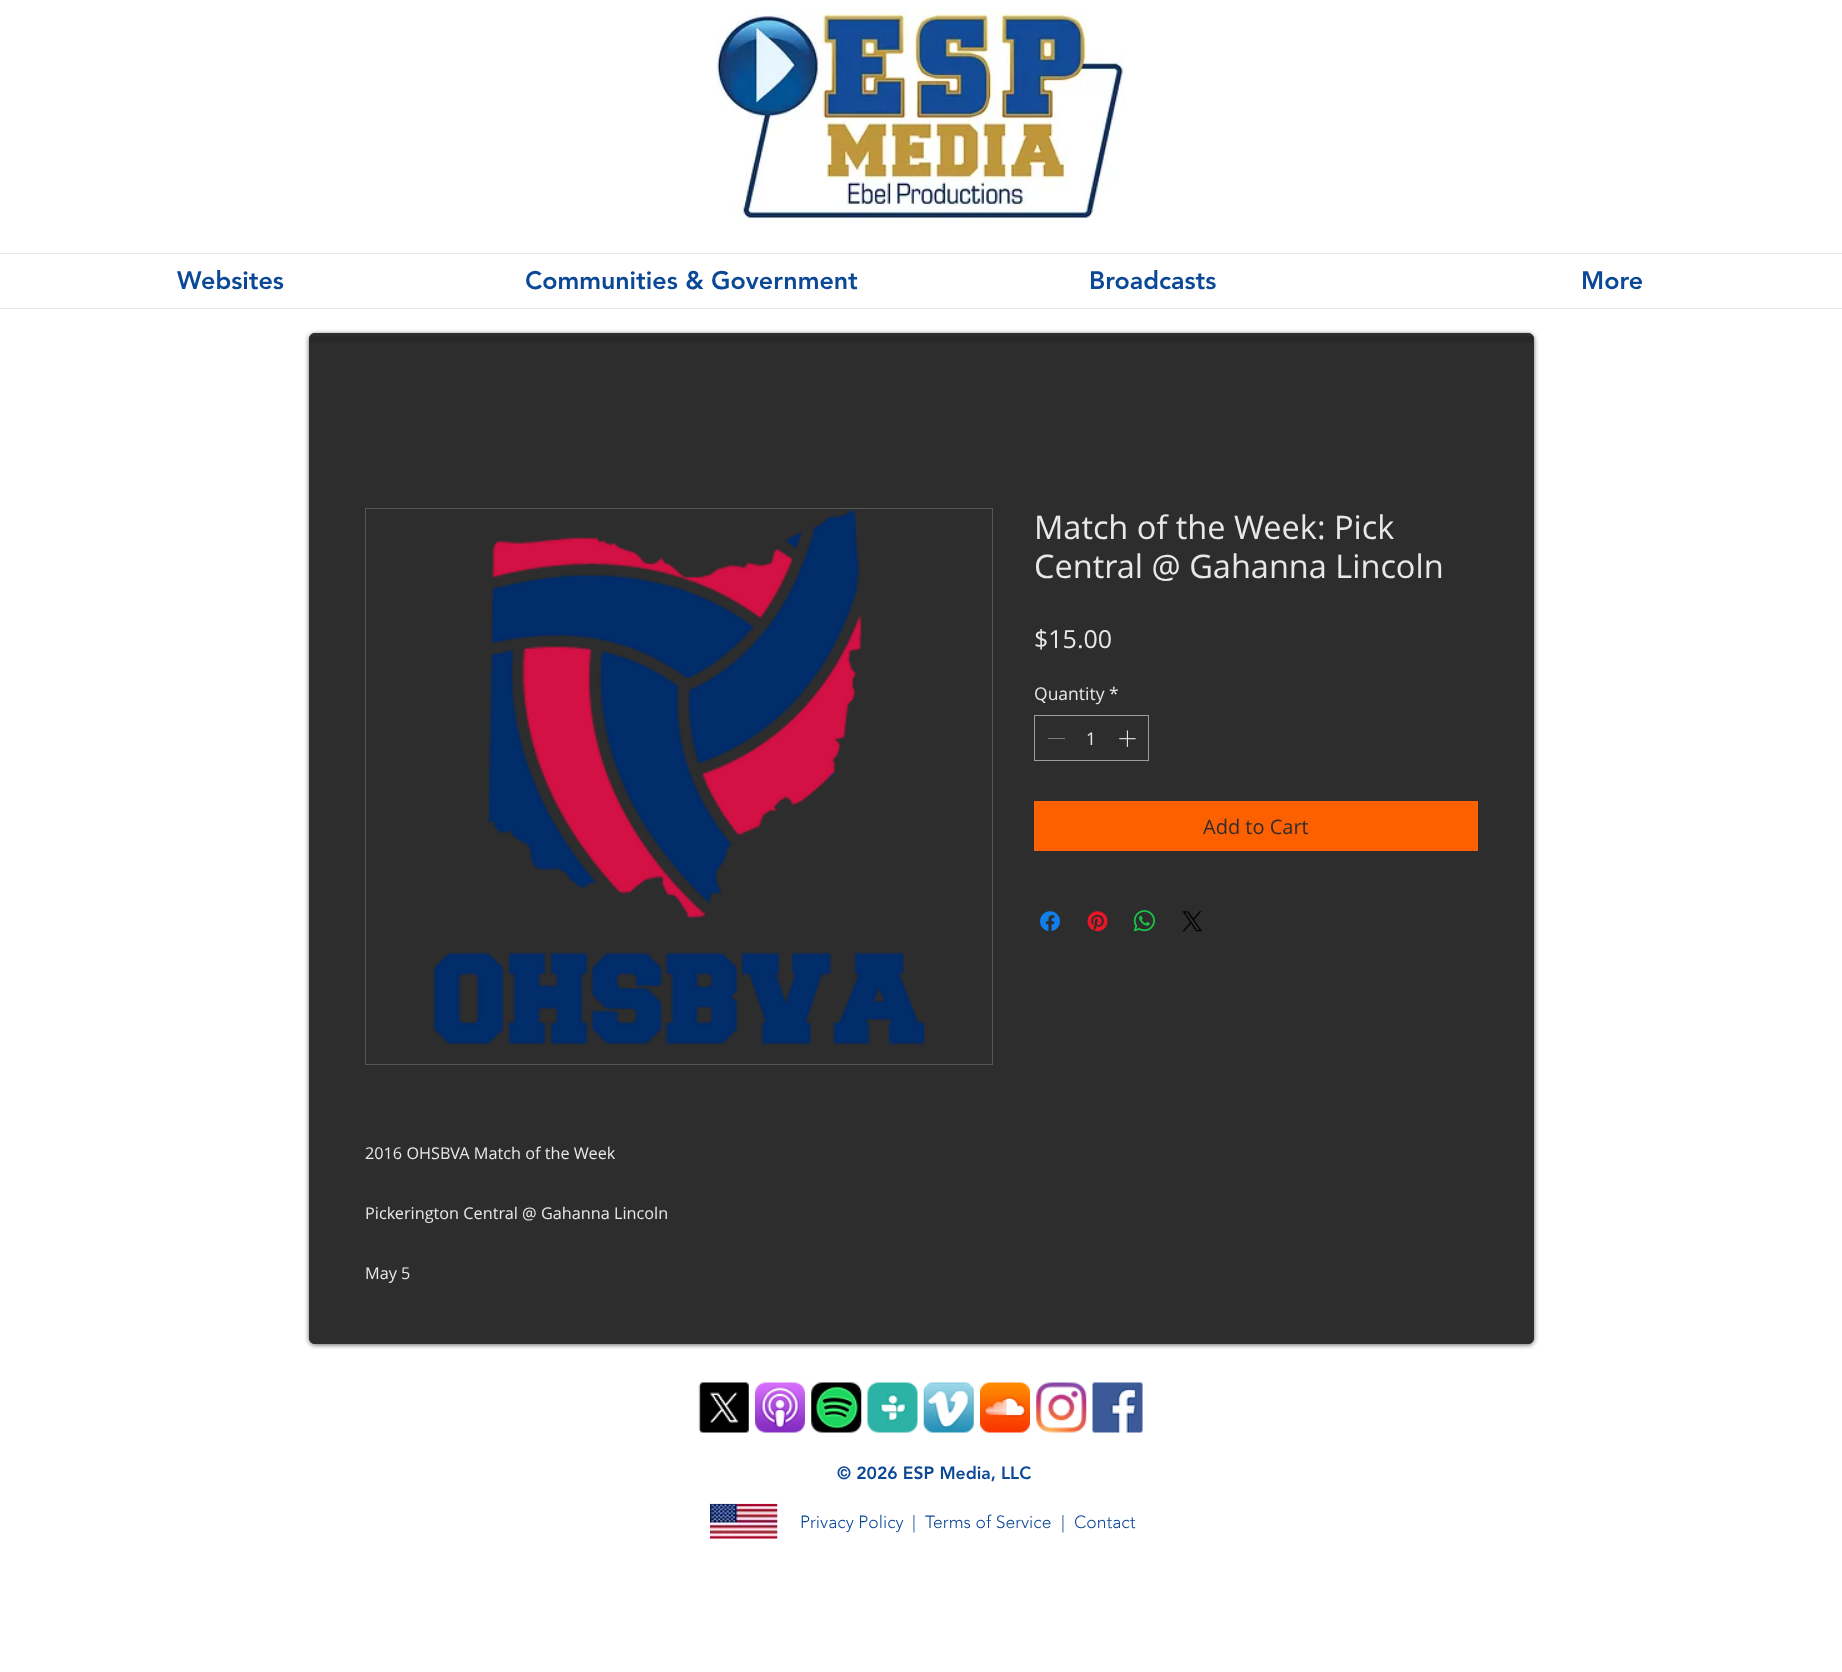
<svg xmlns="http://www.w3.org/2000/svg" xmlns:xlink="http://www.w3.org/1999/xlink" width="1842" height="1672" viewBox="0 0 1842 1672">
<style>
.cls-1{font:900 25px 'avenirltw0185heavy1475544';fill:#0b4896}
.cls-2{font:32.5px Open Sans;fill:#e8e8e8}
.cls-3{font:25px Open Sans;fill:#e8e8e8}
.cls-4{font:17.5px Open Sans;fill:#e8e8e8}
.cls-5{font:20px Open Sans;fill:#2d2d2d}
.cls-6{font:16.25px Open Sans;fill:#e8e8e8}
.cls-7{font:900 17.5px 'avenirltw0185heavy1475544';fill:#0b4896}
.cls-8{font:300 17.5px 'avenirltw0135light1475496';fill:#0b4896}
</style>
<rect width="100%" height="100%" fill="#ffffff"/>
<image xlink:href="image0.png" x="716" y="10" width="410" height="210"/>
<rect fill="#e8e8e8" x="0" y="253" width="1842" height="1"/>
<rect fill="#e8e8e8" x="0" y="308" width="1842" height="1"/>
<rect fill="#000000" fill-opacity="0.6" filter="blur(2.5px)" x="309" y="334" width="1225" height="1011" rx="6"/>
<rect fill="#2d2d2d" x="309" y="333" width="1225" height="1011" rx="6"/>
<rect fill="#000000" fill-opacity="0.09" x="309" y="336" width="1224" height="6"/>
<rect fill="none" stroke="#2d2d2d" x="309.5" y="333.5" width="1224" height="1010" rx="5.5"/>
<rect fill="none" stroke="#9d9d9d" x="1034.5" y="715.5" width="114" height="45"/>
<rect fill="#7a7a7a" x="1048" y="738" width="17" height="1"/>
<image xlink:href="image1.png" x="1119" y="730" width="17" height="17"/>
<rect fill="#fc6000" x="1034" y="801" width="444" height="50"/>
<image xlink:href="image2.png" x="1040" y="911" width="20" height="21"/>
<image xlink:href="image3.png" x="1087" y="911" width="21" height="21"/>
<image xlink:href="image4.png" x="1133" y="910" width="22" height="22"/>
<image xlink:href="image5.png" x="1182" y="911" width="20" height="21"/>
<rect fill="none" stroke="#575757" x="365.5" y="508.5" width="627" height="556"/>
<image xlink:href="image6.png" x="433" y="508" width="492" height="537"/>
<image xlink:href="image7.png" x="698" y="1382" width="51" height="51"/>
<image xlink:href="image8.png" x="755" y="1382" width="50" height="51"/>
<image xlink:href="image9.png" x="811" y="1382" width="51" height="51"/>
<image xlink:href="image10.png" x="867" y="1382" width="51" height="51"/>
<image xlink:href="image11.png" x="923" y="1382" width="51" height="51"/>
<image xlink:href="image12.png" x="980" y="1382" width="50" height="51"/>
<image xlink:href="image13.png" x="1036" y="1382" width="51" height="51"/>
<image xlink:href="image14.png" x="1092" y="1382" width="51" height="51"/>
<image xlink:href="image15.png" x="710" y="1503" width="68" height="36"/>
<text class="cls-1" x="177" y="289">Websites</text>
<text class="cls-1" x="525" y="289">Communities &amp; Government</text>
<text class="cls-1" x="1089" y="289">Broadcasts</text>
<text class="cls-1" x="1581" y="289">More</text>
<text class="cls-2"><tspan x="1034" y="539">Match of the Week: Pick</tspan><tspan x="1034" y="578">Central @ Gahanna Lincoln</tspan></text>
<text class="cls-3" x="1034" y="648">$15.00</text>
<text class="cls-4" x="1034" y="700">Quantity</text>
<text class="cls-4" x="1109" y="700">*</text>
<text class="cls-4" x="1086" y="745">1</text>
<text class="cls-5" x="1203" y="834">Add to Cart</text>
<text class="cls-6" x="365" y="1159">2016 OHSBVA Match of the Week</text>
<text class="cls-6" x="365" y="1219">Pickerington Central @ Gahanna Lincoln</text>
<text class="cls-6" x="365" y="1279">May 5</text>
<text class="cls-7" x="837" y="1479">© 2026 ESP Media, LLC</text>
<text class="cls-8" x="800" y="1528">Privacy Policy</text>
<text class="cls-8" x="912" y="1528">|</text>
<text class="cls-8" x="925" y="1528">Terms of Service</text>
<text class="cls-8" x="1061" y="1528">|</text>
<text class="cls-8" x="1074" y="1528">Contact</text>
</svg>
